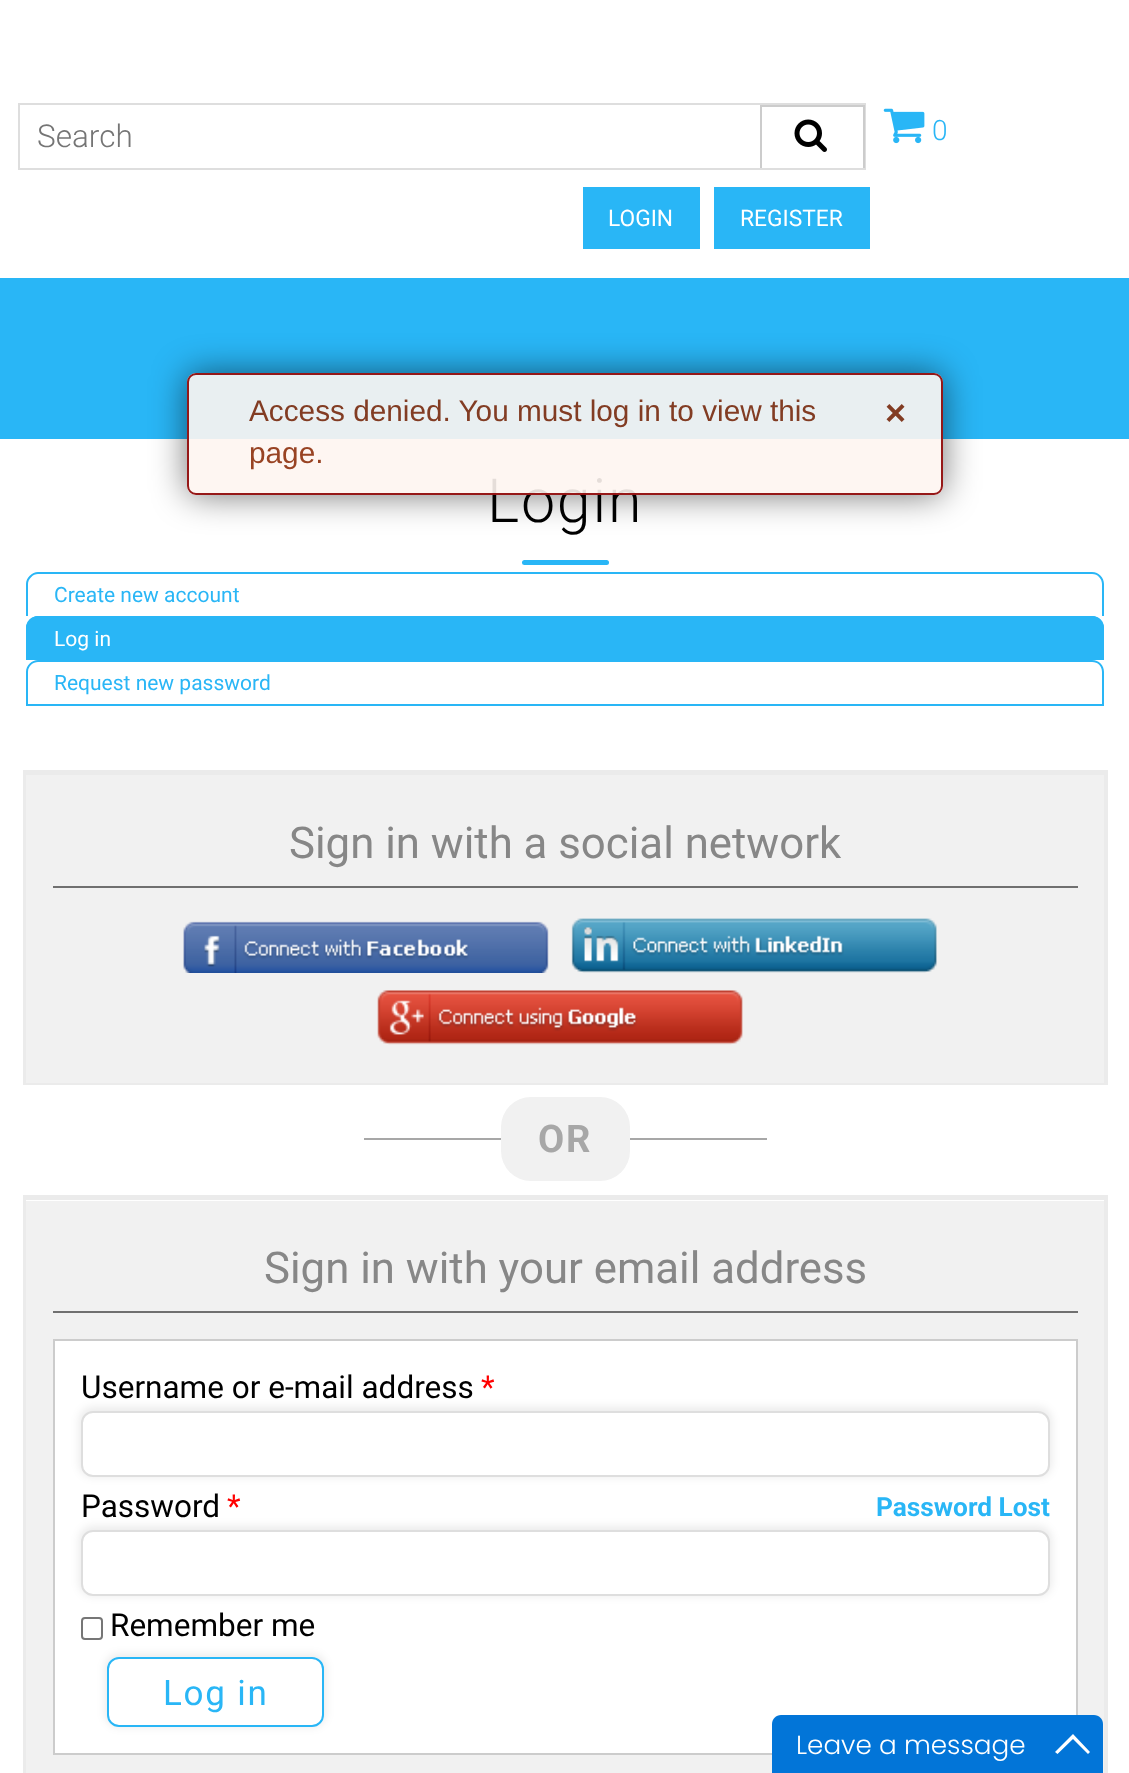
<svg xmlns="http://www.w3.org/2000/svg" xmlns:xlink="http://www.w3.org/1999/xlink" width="1129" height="1773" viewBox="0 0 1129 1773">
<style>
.cls-1{font:300 31.5px Roboto;fill:#757575}
.cls-2{font:22.75px Roboto;fill:#ffffff}
.cls-3{font:300 28px Roboto;fill:#29b6f6}
.cls-4{font:300 61px Roboto;letter-spacing:1.75px;fill:#000000}
.cls-5{font:21px Roboto;fill:#29b6f6}
.cls-6{font:21px Roboto;fill:#ffffff}
.cls-7{font:43.75px Roboto;fill:#878787}
.cls-8{font:bold 38px Roboto;letter-spacing:1.75px;fill:#a7a7a7}
.cls-9{font:31.5px Roboto;fill:#000000}
.cls-10{font:31.5px Roboto;fill:#ff0000}
.cls-11{font:bold 26.25px Roboto;fill:#29b6f6}
.cls-12{font:35px Roboto;letter-spacing:1.75px;fill:#29b6f6}
.cls-13{font:29.75px Liberation Sans;fill:#823c23}
.cls-14{font:29.75px Liberation Sans;fill:#984323}
.cls-15{font:bold 36px Liberation Sans;fill:#823c23}
.cls-16{font:300 26.25px Poppins;fill:#ffffff}
</style>
<defs>
<clipPath id="clip1"><rect x="19" y="105" width="846" height="63"/></clipPath>
<clipPath id="clip2"><path d="M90 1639H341V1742H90ZM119 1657H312C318.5 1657 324 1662.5 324 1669V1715C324 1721.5 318.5 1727 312 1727H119C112.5 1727 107 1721.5 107 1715V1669C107 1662.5 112.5 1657 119 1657Z" clip-rule="evenodd"/></clipPath>
<clipPath id="clip3"><path d="M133 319H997V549H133ZM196 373H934C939 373 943 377 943 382V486C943 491 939 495 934 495H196C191 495 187 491 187 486V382C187 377 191 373 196 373Z" clip-rule="evenodd"/></clipPath>
</defs>
<rect width="100%" height="100%" fill="#ffffff"/>
<rect fill="none" stroke="#dedede" stroke-width="2" x="19" y="104" width="846" height="65"/>
<image xlink:href="image0.png" x="794" y="119" width="33" height="33"/>
<rect fill="#29b6f6" x="714" y="187" width="156" height="62"/>
<g clip-path="url(#clip1)">
<rect fill="none" stroke="#cccccc" stroke-width="2" x="761" y="106" width="103" height="89"/>
</g>
<rect fill="#29b6f6" x="583" y="187" width="117" height="62"/>
<image xlink:href="image1.png" x="883" y="108" width="42" height="36"/>
<rect fill="#29b6f6" x="0" y="278" width="1129" height="161"/>
<rect fill="#29b6f6" x="522" y="560" width="87" height="5" rx="2.5"/>
<rect fill="#29b6f6" x="26" y="704" width="1078" height="2"/>
<path fill="#29b6f6" fill-rule="evenodd" d="M38 572H1092C1099 572 1104 578 1104 584V616H26V584C26 578 32 572 38 572ZM38 574H1092C1098 574 1102 579 1102 584V616H28V584C28 579 33 574 38 574Z"/>
<path fill="#29b6f6" d="M38 616H1092C1098.5 616 1104 621.5 1104 628V660H26V628C26 621.5 31.5 616 38 616Z"/>
<path fill="#29b6f6" fill-rule="evenodd" d="M38 616H1092C1099 616 1104 621 1104 628V660H26V628C26 621 32 616 38 616ZM38 618H1092C1098 618 1102 622 1102 628V660H28V628C28 622 33 618 38 618Z"/>
<path fill="#29b6f6" fill-rule="evenodd" d="M38 660H1092C1099 660 1104 665 1104 672V704H26V672C26 665 32 660 38 660ZM38 662H1092C1098 662 1102 666 1102 672V704H28V672C28 666 33 662 38 662Z"/>
<path fill="#ebebeb" fill-rule="evenodd" d="M23 770V1085H1108V770ZM26 775V1083H1104V775Z"/>
<rect fill="#f1f1f1" x="26" y="775" width="1078" height="308"/>
<rect fill="#707070" x="53" y="886" width="1025" height="2"/>
<image xlink:href="image2.png" x="183" y="921" width="366" height="52"/>
<image xlink:href="image3.png" x="571" y="918" width="366" height="55"/>
<image xlink:href="image4.png" x="377" y="990" width="366" height="55"/>
<rect fill="#a7a7a7" x="364" y="1138" width="403" height="2"/>
<rect fill="#f1f1f1" x="501" y="1097" width="129" height="84" rx="30"/>
<path fill="#ebebeb" fill-rule="evenodd" d="M23 1195V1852H1108V1195ZM26 1200V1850H1104V1200Z"/>
<rect fill="#f1f1f1" x="26" y="1201" width="1078" height="572"/>
<rect fill="#707070" x="53" y="1311" width="1025" height="2"/>
<rect fill="#ffffff" stroke="#cccccc" stroke-width="2" x="54" y="1340" width="1023" height="414"/>
<rect fill="#000000" fill-opacity="0.08" filter="blur(4.5px)" x="79" y="1407" width="973" height="70" rx="14"/>
<rect fill="#ffffff" stroke="#dedede" stroke-width="2" x="82" y="1412" width="967" height="64" rx="11"/>
<rect fill="#000000" fill-opacity="0.08" filter="blur(4.5px)" x="79" y="1526" width="973" height="70" rx="14"/>
<rect fill="#ffffff" stroke="#dedede" stroke-width="2" x="82" y="1531" width="967" height="64" rx="11"/>
<rect fill="none" stroke="#767676" stroke-width="2" x="82" y="1618" width="20" height="21" rx="3"/>
<g clip-path="url(#clip2)">
<rect fill="#000000" fill-opacity="0.08" filter="blur(4.5px)" x="105" y="1654" width="221" height="73" rx="14"/>
</g>
<rect fill="none" stroke="#29b6f6" stroke-width="2" x="108" y="1658" width="215" height="68" rx="11"/>
<g clip-path="url(#clip3)">
<rect fill="#000000" fill-opacity="0.54" filter="blur(17.5px)" x="187" y="373" width="756" height="122" rx="9"/>
</g>
<path fill="#0275d8" d="M781 1715H1094C1099 1715 1103 1719 1103 1724V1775H772V1724C772 1719 776 1715 781 1715Z"/>
<path fill="#ffffff" d="M1073 1734L1090 1752L1088 1754L1073 1739L1057.5 1754L1055 1752Z"/>
<text class="cls-1" x="37" y="147">Search</text>
<text class="cls-2" x="608" y="226">LOGIN</text>
<text class="cls-2" x="740" y="226">REGISTER</text>
<text class="cls-3" x="932" y="140">0</text>
<text class="cls-4" x="487" y="522">Login</text>
<text class="cls-5" x="54" y="602">Create new account</text>
<text class="cls-6" x="54" y="646">Log in</text>
<text class="cls-5" x="54" y="690">Request new password</text>
<text class="cls-7" x="289" y="858">Sign in with a social network</text>
<text class="cls-8" x="538" y="1152">OR</text>
<text class="cls-7" x="264" y="1283">Sign in with your email address</text>
<text class="cls-9" x="81" y="1398">Username or e-mail address</text>
<text class="cls-10" x="481" y="1398">*</text>
<text class="cls-9" x="81" y="1517">Password</text>
<text class="cls-10" x="227" y="1517">*</text>
<text class="cls-11" x="876" y="1516">Password Lost</text>
<text class="cls-9" x="110" y="1636">Remember me</text>
<text class="cls-12" x="163" y="1705">Log in</text>
<rect fill="#fef5f1" fill-opacity="0.9" x="187" y="373" width="756" height="122" rx="9"/>
<rect fill="none" stroke="#8b0000" stroke-opacity="0.9" stroke-width="2" x="188" y="374" width="754" height="120" rx="8"/>
<text class="cls-13" x="249" y="421">Access denied. You must log in to view this</text>
<text class="cls-14" x="249" y="463">page.</text>
<text class="cls-15" x="885" y="425">×</text>
<text class="cls-16" x="796" y="1754">Leave a message</text>
</svg>
